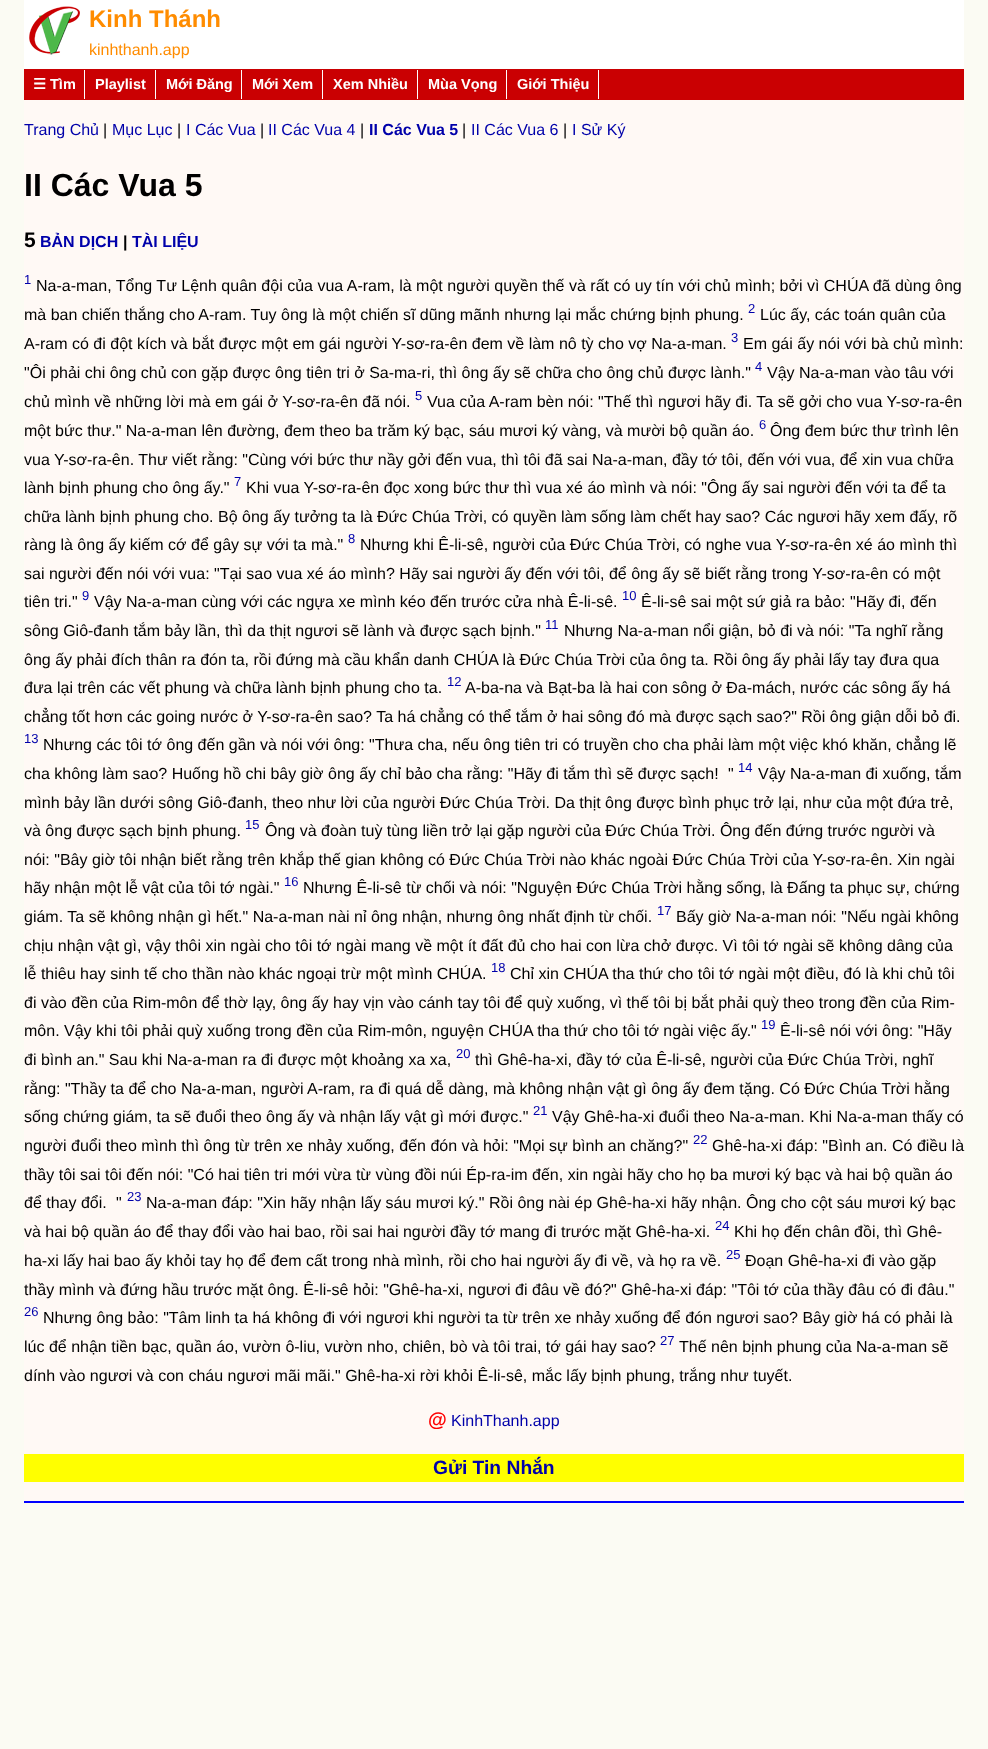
<svg xmlns="http://www.w3.org/2000/svg" xmlns:xlink="http://www.w3.org/1999/xlink" width="988" height="1749" viewBox="0 0 988 1749">
<style>
.cls-1{font:bold 24px Liberation Sans;fill:#ff8c00}
.cls-2{font:16px Liberation Sans;fill:#ff8c00}
.cls-3{font:bold 14.5px DejaVu Sans;fill:#ffffff}
.cls-4{font:bold 14.5px Liberation Sans;fill:#ffffff}
.cls-5{font:16px Liberation Sans;fill:#0000aa}
.cls-6{font:16px Liberation Sans;fill:#000000}
.cls-7{font:bold 16px Liberation Sans;fill:#0000aa}
.cls-8{font:bold 32px Liberation Sans;fill:#000000}
.cls-9{font:bold 21px Liberation Sans;fill:#000000}
.cls-10{font:bold 16px Liberation Sans;fill:#000000}
.cls-11{font:13px Liberation Sans;fill:#0000aa}
.cls-12{font:bold 19.25px Liberation Sans;fill:#ff0000}
.cls-13{font:bold 19.25px Liberation Sans;fill:#0000aa}
</style>
<rect width="100%" height="100%" fill="#fbfbf3"/>
<rect fill="#fff9f5" x="24" y="100" width="940" height="1401"/>
<rect fill="#ffffff" x="24" y="0" width="940" height="69"/>
<image xlink:href="image0.png" x="29" y="6" width="51" height="49"/>
<rect fill="#ca0002" x="24" y="69" width="940" height="31"/>
<rect fill="#ffffff" x="84" y="70" width="1" height="29"/>
<rect fill="#ffffff" x="155" y="70" width="1" height="29"/>
<rect fill="#ffffff" x="241" y="70" width="1" height="29"/>
<rect fill="#ffffff" x="322" y="70" width="1" height="29"/>
<rect fill="#ffffff" x="417" y="70" width="1" height="29"/>
<rect fill="#ffffff" x="506" y="70" width="1" height="29"/>
<rect fill="#ffffff" x="598" y="70" width="1" height="29"/>
<rect fill="#ffff00" x="24" y="1454" width="940" height="28"/>
<rect fill="#0000ff" x="24" y="1501" width="940" height="2"/>
<text class="cls-1" x="89" y="27">Kinh Thánh</text>
<text class="cls-2" x="89" y="55">kinhthanh.app</text>
<text class="cls-3" x="33" y="89">☰</text>
<text class="cls-4" x="50" y="89">Tìm</text>
<text class="cls-4" x="95" y="89">Playlist</text>
<text class="cls-4" x="166" y="89">Mới Đăng</text>
<text class="cls-4" x="252" y="89">Mới Xem</text>
<text class="cls-4" x="333" y="89">Xem Nhiều</text>
<text class="cls-4" x="428" y="89">Mùa Vọng</text>
<text class="cls-4" x="517" y="89">Giới Thiệu</text>
<text class="cls-5" x="24" y="135">Trang Chủ</text>
<text class="cls-6" x="103" y="135">|</text>
<text class="cls-5" x="112" y="135">Mục Lục</text>
<text class="cls-6" x="177" y="135">|</text>
<text class="cls-5" x="186" y="135">I Các Vua</text>
<text class="cls-6" x="260" y="135">|</text>
<text class="cls-5" x="268" y="135">II Các Vua 4</text>
<text class="cls-6" x="360" y="135">|</text>
<text class="cls-7" x="369" y="135">II Các Vua 5</text>
<text class="cls-6" x="462" y="135">|</text>
<text class="cls-5" x="471" y="135">II Các Vua 6</text>
<text class="cls-6" x="563" y="135">|</text>
<text class="cls-5" x="572" y="135">I Sử Ký</text>
<text class="cls-8" x="24" y="196">II Các Vua 5</text>
<text class="cls-9" x="24" y="247">5</text>
<text class="cls-7" x="40" y="247">BẢN DỊCH</text>
<text class="cls-10" x="123" y="247">|</text>
<text class="cls-7" x="132" y="247">TÀI LIỆU</text>
<text class="cls-11" x="24" y="284">1</text>
<text class="cls-6" x="36" y="291">Na-a-man, Tổng Tư Lệnh quân đội của vua A-ram, là một người quyền thế và rất có uy tín với chủ mình; bởi vì CHÚA đã dùng ông</text>
<text class="cls-6" x="24" y="320">mà ban chiến thắng cho A-ram. Tuy ông là một chiến sĩ dũng mãnh nhưng lại mắc chứng bịnh phung.</text>
<text class="cls-11" x="748" y="313">2</text>
<text class="cls-6" x="760" y="320">Lúc ấy, các toán quân của</text>
<text class="cls-6" x="24" y="349">A-ram có đi đột kích và bắt được một em gái người Y-sơ-ra-ên đem về làm nô tỳ cho vợ Na-a-man.</text>
<text class="cls-11" x="731" y="342">3</text>
<text class="cls-6" x="743" y="349">Em gái ấy nói với bà chủ mình:</text>
<text class="cls-6" x="24" y="378">"Ôi phải chi ông chủ con gặp được ông tiên tri ở Sa-ma-ri, thì ông ấy sẽ chữa cho ông chủ được lành."</text>
<text class="cls-11" x="755" y="371">4</text>
<text class="cls-6" x="767" y="378">Vậy Na-a-man vào tâu với</text>
<text class="cls-6" x="24" y="407">chủ mình về những lời mà em gái ở Y-sơ-ra-ên đã nói.</text>
<text class="cls-11" x="415" y="400">5</text>
<text class="cls-6" x="427" y="407">Vua của A-ram bèn nói: "Thế thì ngươi hãy đi. Ta sẽ gởi cho vua Y-sơ-ra-ên</text>
<text class="cls-6" x="24" y="436">một bức thư." Na-a-man lên đường, đem theo ba trăm ký bạc, sáu mươi ký vàng, và mười bộ quần áo.</text>
<text class="cls-11" x="759" y="429">6</text>
<text class="cls-6" x="770" y="436">Ông đem bức thư trình lên</text>
<text class="cls-6"><tspan x="24" y="465">vua Y-sơ-ra-ên. Thư viết rằng: "Cùng với bức thư nầy gởi đến vua, thì tôi đã sai Na-a-man, đầy tớ tôi, đến với vua, để xin vua chữa</tspan><tspan x="24" y="493">lành bịnh phung cho ông ấy."</tspan></text>
<text class="cls-11" x="234" y="486">7</text>
<text class="cls-6" x="246" y="493">Khi vua Y-sơ-ra-ên đọc xong bức thư thì vua xé áo mình và nói: "Ông ấy sai người đến với ta để ta</text>
<text class="cls-6"><tspan x="24" y="522">chữa lành bịnh phung cho. Bộ ông ấy tưởng ta là Đức Chúa Trời, có quyền làm sống làm chết hay sao? Các ngươi hãy xem đấy, rõ</tspan><tspan x="24" y="550">ràng là ông ấy kiếm cớ để gây sự với ta mà."</tspan></text>
<text class="cls-11" x="348" y="543">8</text>
<text class="cls-6" x="360" y="550">Nhưng khi Ê-li-sê, người của Đức Chúa Trời, có nghe vua Y-sơ-ra-ên xé áo mình thì</text>
<text class="cls-6"><tspan x="24" y="579">sai người đến nói với vua: "Tại sao vua xé áo mình? Hãy sai người ấy đến với tôi, để ông ấy sẽ biết rằng trong Y-sơ-ra-ên có một</tspan><tspan x="24" y="607">tiên tri."</tspan></text>
<text class="cls-11" x="82" y="600">9</text>
<text class="cls-6" x="94" y="607">Vậy Na-a-man cùng với các ngựa xe mình kéo đến trước cửa nhà Ê-li-sê.</text>
<text class="cls-11" x="622" y="600">10</text>
<text class="cls-6" x="641" y="607">Ê-li-sê sai một sứ giả ra bảo: "Hãy đi, đến</text>
<text class="cls-6" x="24" y="636">sông Giô-đanh tắm bảy lần, thì da thịt ngươi sẽ lành và được sạch bịnh."</text>
<text class="cls-11" x="545" y="629">11</text>
<text class="cls-6" x="564" y="636">Nhưng Na-a-man nổi giận, bỏ đi và nói: "Ta nghĩ rằng</text>
<text class="cls-6"><tspan x="24" y="665">ông ấy phải đích thân ra đón ta, rồi đứng mà cầu khẩn danh CHÚA là Đức Chúa Trời của ông ta. Rồi ông ấy phải lấy tay đưa qua</tspan><tspan x="24" y="693">đưa lại trên các vết phung và chữa lành bịnh phung cho ta.</tspan></text>
<text class="cls-11" x="447" y="686">12</text>
<text class="cls-6" x="465" y="693">A-ba-na và Bạt-ba là hai con sông ở Đa-mách, nước các sông ấy há</text>
<text class="cls-6" x="24" y="722">chẳng tốt hơn các going nước ở Y-sơ-ra-ên sao? Ta há chẳng có thể tắm ở hai sông đó mà được sạch sao?" Rồi ông giận dỗi bỏ đi.</text>
<text class="cls-11" x="24" y="743">13</text>
<text class="cls-6" x="43" y="750">Nhưng các tôi tớ ông đến gần và nói với ông: "Thưa cha, nếu ông tiên tri có truyền cho cha phải làm một việc khó khăn, chẳng lẽ</text>
<text class="cls-6" x="24" y="779">cha không làm sao? Huống hồ chi bây giờ ông ấy chỉ bảo cha rằng: "Hãy đi tắm thì sẽ được sạch!</text>
<text class="cls-6" x="728" y="779">"</text>
<text class="cls-11" x="738" y="772">14</text>
<text class="cls-6" x="758" y="779">Vậy Na-a-man đi xuống, tắm</text>
<text class="cls-6"><tspan x="24" y="808">mình bảy lần dưới sông Giô-đanh, theo như lời của người Đức Chúa Trời. Da thịt ông được bình phục trở lại, như của một đứa trẻ,</tspan><tspan x="24" y="836">và ông được sạch bịnh phung.</tspan></text>
<text class="cls-11" x="245" y="829">15</text>
<text class="cls-6" x="265" y="836">Ông và đoàn tuỳ tùng liền trở lại gặp người của Đức Chúa Trời. Ông đến đứng trước người và</text>
<text class="cls-6"><tspan x="24" y="865">nói: "Bây giờ tôi nhận biết rằng trên khắp thế gian không có Đức Chúa Trời nào khác ngoài Đức Chúa Trời của Y-sơ-ra-ên. Xin ngài</tspan><tspan x="24" y="893">hãy nhận một lễ vật của tôi tớ ngài."</tspan></text>
<text class="cls-11" x="284" y="886">16</text>
<text class="cls-6" x="303" y="893">Nhưng Ê-li-sê từ chối và nói: "Nguyện Đức Chúa Trời hằng sống, là Đấng ta phục sự, chứng</text>
<text class="cls-6" x="24" y="922">giám. Ta sẽ không nhận gì hết." Na-a-man nài nỉ ông nhận, nhưng ông nhất định từ chối.</text>
<text class="cls-11" x="657" y="915">17</text>
<text class="cls-6" x="676" y="922">Bấy giờ Na-a-man nói: "Nếu ngài không</text>
<text class="cls-6"><tspan x="24" y="951">chịu nhận vật gì, vậy thôi xin ngài cho tôi tớ ngài mang về một ít đất đủ cho hai con lừa chở được. Vì tôi tớ ngài sẽ không dâng của</tspan><tspan x="24" y="979">lễ thiêu hay sinh tế cho thần nào khác ngoại trừ một mình CHÚA.</tspan></text>
<text class="cls-11" x="491" y="972">18</text>
<text class="cls-6" x="510" y="979">Chỉ xin CHÚA tha thứ cho tôi tớ ngài một điều, đó là khi chủ tôi</text>
<text class="cls-6"><tspan x="24" y="1008">đi vào đền của Rim-môn để thờ lạy, ông ấy hay vịn vào cánh tay tôi để quỳ xuống, vì thế tôi bị bắt phải quỳ theo trong đền của Rim-</tspan><tspan x="24" y="1036">môn. Vậy khi tôi phải quỳ xuống trong đền của Rim-môn, nguyện CHÚA tha thứ cho tôi tớ ngài việc ấy."</tspan></text>
<text class="cls-11" x="761" y="1029">19</text>
<text class="cls-6" x="780" y="1036">Ê-li-sê nói với ông: "Hãy</text>
<text class="cls-6" x="24" y="1065">đi bình an." Sau khi Na-a-man ra đi được một khoảng xa xa,</text>
<text class="cls-11" x="456" y="1058">20</text>
<text class="cls-6" x="475" y="1065">thì Ghê-ha-xi, đầy tớ của Ê-li-sê, người của Đức Chúa Trời, nghĩ</text>
<text class="cls-6"><tspan x="24" y="1094">rằng: "Thầy ta để cho Na-a-man, người A-ram, ra đi quá dễ dàng, mà không nhận vật gì ông ấy đem tặng. Có Đức Chúa Trời hằng</tspan><tspan x="24" y="1122">sống chứng giám, ta sẽ đuổi theo ông ấy và nhận lấy vật gì mới được."</tspan></text>
<text class="cls-11" x="533" y="1115">21</text>
<text class="cls-6" x="552" y="1122">Vậy Ghê-ha-xi đuổi theo Na-a-man. Khi Na-a-man thấy có</text>
<text class="cls-6" x="24" y="1151">người đuổi theo mình thì ông từ trên xe nhảy xuống, đến đón và hỏi: "Mọi sự bình an chăng?"</text>
<text class="cls-11" x="693" y="1144">22</text>
<text class="cls-6" x="712" y="1151">Ghê-ha-xi đáp: "Bình an. Có điều là</text>
<text class="cls-6"><tspan x="24" y="1180">thầy tôi sai tôi đến nói: "Có hai tiên tri mới vừa từ vùng đồi núi Ép-ra-im đến, xin ngài hãy cho họ ba mươi ký bạc và hai bộ quần áo</tspan><tspan x="24" y="1208">để thay đổi.</tspan></text>
<text class="cls-6" x="116" y="1208">"</text>
<text class="cls-11" x="127" y="1201">23</text>
<text class="cls-6" x="146" y="1208">Na-a-man đáp: "Xin hãy nhận lấy sáu mươi ký." Rồi ông nài ép Ghê-ha-xi hãy nhận. Ông cho cột sáu mươi ký bạc</text>
<text class="cls-6" x="24" y="1237">và hai bộ quần áo để thay đổi vào hai bao, rồi sai hai người đầy tớ mang đi trước mặt Ghê-ha-xi.</text>
<text class="cls-11" x="715" y="1230">24</text>
<text class="cls-6" x="734" y="1237">Khi họ đến chân đồi, thì Ghê-</text>
<text class="cls-6" x="24" y="1266">ha-xi lấy hai bao ấy khỏi tay họ để đem cất trong nhà mình, rồi cho hai người ấy đi về, và họ ra về.</text>
<text class="cls-11" x="726" y="1259">25</text>
<text class="cls-6" x="745" y="1266">Đoạn Ghê-ha-xi đi vào gặp</text>
<text class="cls-6" x="24" y="1295">thầy mình và đứng hầu trước mặt ông. Ê-li-sê hỏi: "Ghê-ha-xi, ngươi đi đâu về đó?" Ghê-ha-xi đáp: "Tôi tớ của thầy đâu có đi đâu."</text>
<text class="cls-11" x="24" y="1316">26</text>
<text class="cls-6" x="43" y="1323">Nhưng ông bảo: "Tâm linh ta há không đi với ngươi khi người ta từ trên xe nhảy xuống để đón ngươi sao? Bây giờ há có phải là</text>
<text class="cls-6" x="24" y="1352">lúc để nhận tiền bạc, quần áo, vườn ô-liu, vườn nho, chiên, bò và tôi trai, tớ gái hay sao?</text>
<text class="cls-11" x="660" y="1345">27</text>
<text class="cls-6" x="679" y="1352">Thế nên bịnh phung của Na-a-man sẽ</text>
<text class="cls-6" x="24" y="1381">dính vào ngươi và con cháu ngươi mãi mãi." Ghê-ha-xi rời khỏi Ê-li-sê, mắc lấy bịnh phung, trắng như tuyết.</text>
<text class="cls-12" x="428" y="1426">@</text>
<text class="cls-5" x="451" y="1426">KinhThanh.app</text>
<text class="cls-13" x="433" y="1474">Gửi Tin Nhắn</text>
</svg>
